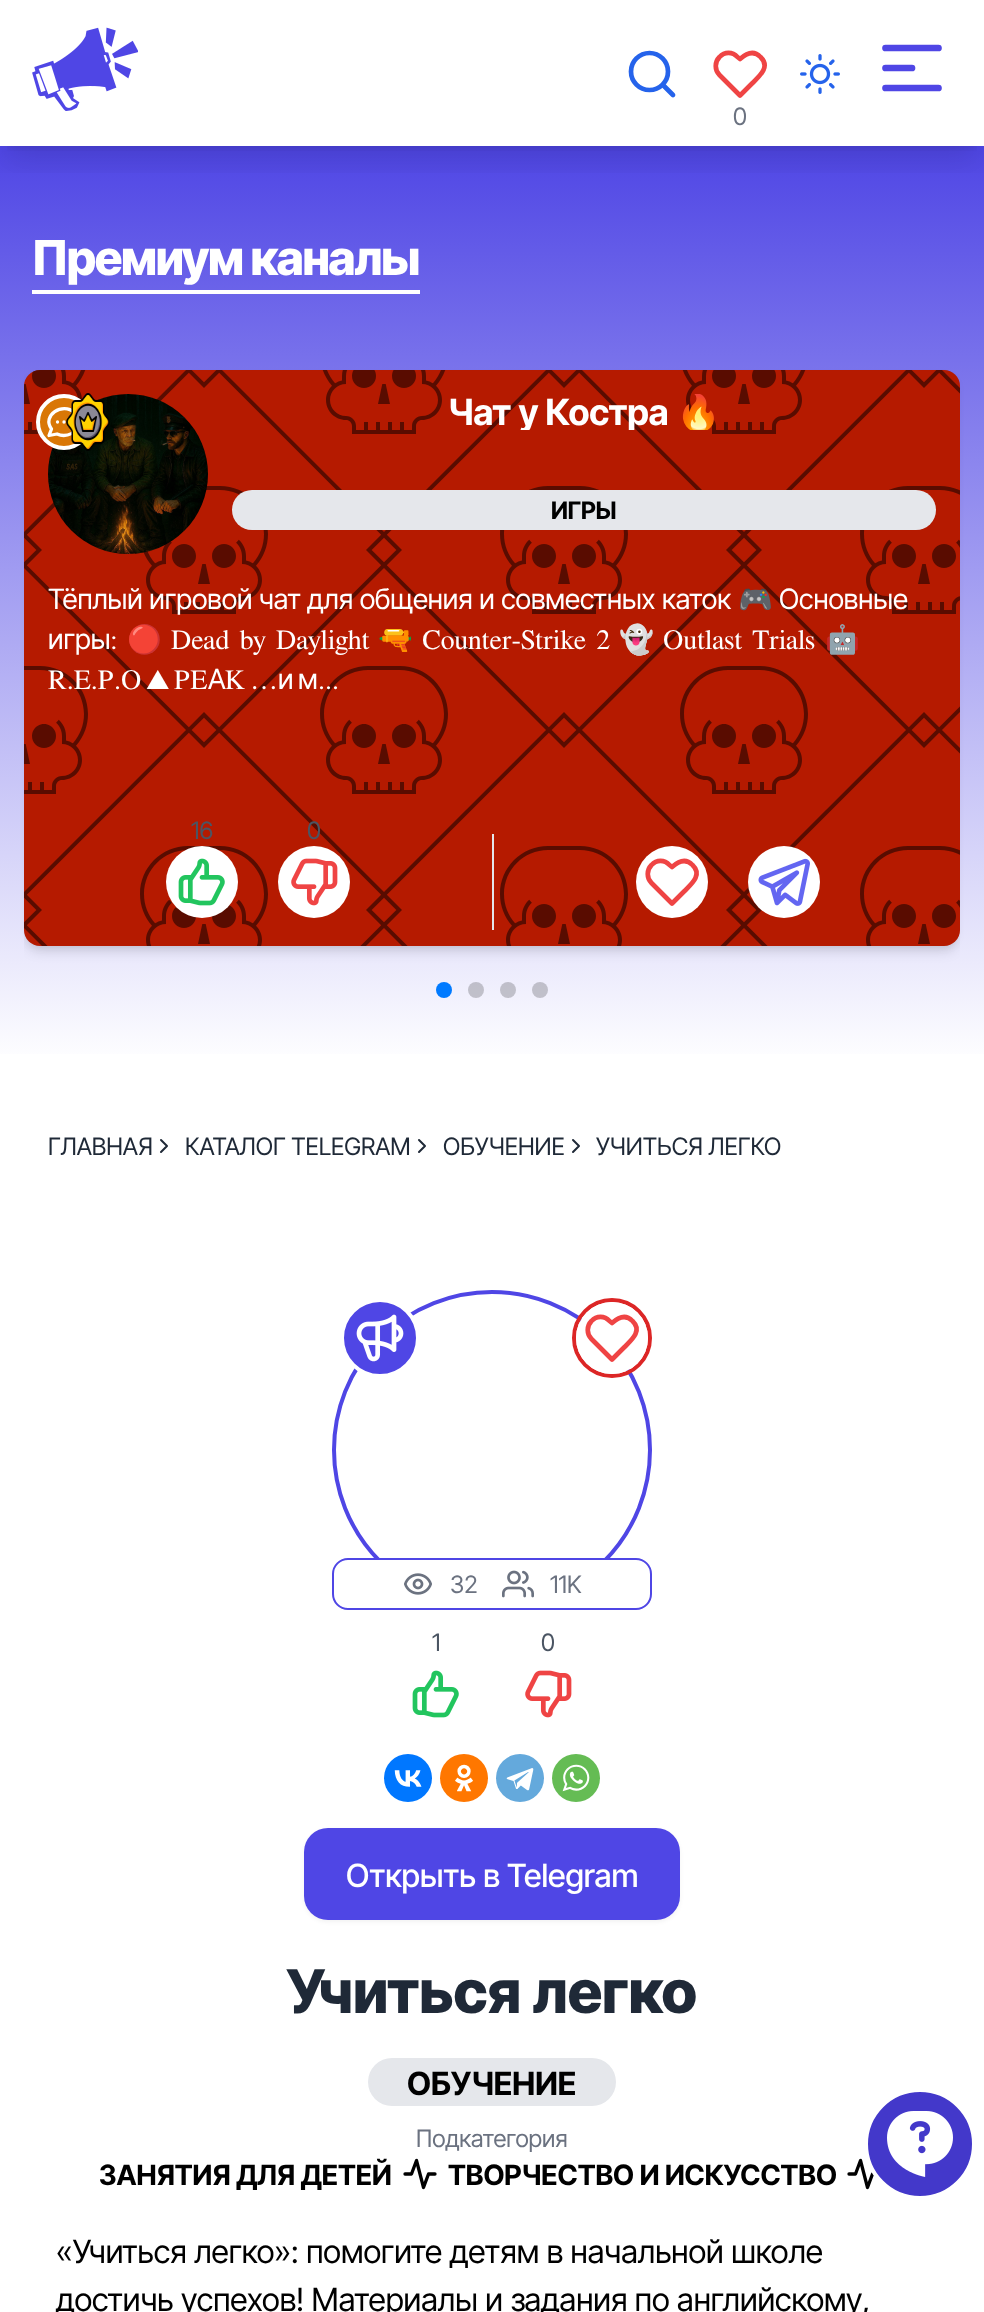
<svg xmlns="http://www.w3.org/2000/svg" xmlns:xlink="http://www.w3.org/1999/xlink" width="984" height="2312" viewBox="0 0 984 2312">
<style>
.cls-1{font:24px Inter Tight;fill:#6b7280}
.cls-2{font:800 48px Inter Tight;letter-spacing:-1.25px;fill:#ffffff}
.cls-3{font:bold 36px Inter Tight;fill:#ffffff}
.cls-4{font:bold 36px Noto Color Emoji;fill:#ffffff}
.cls-5{font:bold 24px Inter Tight;fill:#000000}
.cls-6{font:28px Inter Tight;fill:#ffffff}
.cls-7{font:28px Noto Color Emoji;fill:#ffffff}
.cls-8{font:28px FreeSerif;fill:#ffffff}
.cls-9{font:24px Inter Tight;fill:#4b5563}
.cls-10{font:24px Inter Tight;fill:#1f2937}
.cls-11{font:500 32px Inter Tight;fill:#ffffff}
.cls-12{font:800 60px Inter Tight;fill:#1f2937}
.cls-13{font:bold 32px Inter Tight;fill:#000000}
.cls-14{font:bold 28px Inter Tight;fill:#000000}
.cls-15{font:32px Inter Tight;fill:#000000}
</style>
<defs>
<linearGradient id="g1" gradientUnits="userSpaceOnUse" x1="492" y1="146" x2="492" y2="1066"><stop offset="0" stop-color="#4f46e5"/><stop offset="1" stop-color="#ffffff"/></linearGradient>
<clipPath id="clip1"><rect x="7" y="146" width="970" height="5"/></clipPath>
<clipPath id="clip2"><rect x="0" y="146" width="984" height="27"/></clipPath>
<clipPath id="clip3"><rect x="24" y="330" width="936" height="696"/></clipPath>
<clipPath id="clip4"><rect x="232" y="394" width="704" height="36"/></clipPath>
</defs>
<rect width="100%" height="100%" fill="#ffffff"/>
<rect fill="url(#g1)" x="0" y="146" width="984" height="908"/>
<g clip-path="url(#clip1)">
<rect fill="#000000" fill-opacity="0.1" filter="blur(6px)" x="8" y="16" width="968" height="130"/>
</g>
<g clip-path="url(#clip2)">
<rect fill="#000000" fill-opacity="0.1" filter="blur(15px)" x="6" y="26" width="972" height="134"/>
</g>
<image xlink:href="image0.png" x="32" y="27" width="106" height="84"/>
<circle fill="none" stroke="#2563eb" stroke-width="4.7" cx="649.5" cy="71.5" r="18.5"/>
<path fill="none" stroke="#2563eb" stroke-width="4.7" stroke-linecap="round" stroke-linejoin="round" d="M673 95L663 85"/>
<image xlink:href="image1.png" x="800" y="54" width="40" height="40"/>
<path fill="none" stroke="#4f46e5" stroke-width="6.7" stroke-linecap="round" stroke-linejoin="round" d="M885.5 48H938.5M885.5 68H912M885.5 88H938.5"/>
<path fill="none" stroke="#ef4444" stroke-width="4.7" stroke-linecap="round" stroke-linejoin="round" d="M760.5 57C753.5 49.5 746 53.5 740 59L737.5 57C732.5 51.5 724.5 51.5 719.5 57C714.5 62 714.5 70 719.5 75L740 95.5L752 83.5C759 76.5 771 67 760.5 57Z"/>
<rect fill="#ffffff" x="32" y="290" width="388" height="4"/>
<rect fill="#000000" fill-opacity="0.1" filter="blur(4px)" x="28" y="378" width="928" height="568" rx="12"/>
<g clip-path="url(#clip3)">
<rect fill="#000000" fill-opacity="0.1" filter="blur(6px)" x="26" y="380" width="932" height="572" rx="14"/>
</g>
<rect fill="#b51a00" x="24" y="370" width="936" height="576" rx="16"/>
<image xlink:href="image2.png" x="24" y="370" width="936" height="576"/>
<image xlink:href="image4.png" x="48" y="394" width="160" height="160"/>
<circle fill="#d97706" stroke="#ffffff" stroke-width="4" cx="64" cy="422" r="26"/>
<path fill="none" stroke="#ffffff" stroke-width="3.3" stroke-linecap="round" stroke-linejoin="round" d="M57.5 422H57.5M64 422H64M70.5 422H70.5M79 422C79 433 66 438 57 434L49 435.5L51.5 429C41.5 415.5 62.5 401.5 74.5 412.5C77.5 415 79 418.5 79 422Z"/>
<image xlink:href="image3.png" x="66" y="393" width="44" height="58"/>
<rect fill="#e5e7eb" x="232" y="490" width="704" height="40" rx="20"/>
<circle fill="#ffffff" cx="202" cy="882" r="36"/>
<image xlink:href="image5.png" x="178" y="858" width="47" height="48"/>
<circle fill="#ffffff" cx="314" cy="882" r="36"/>
<image xlink:href="image6.png" x="291" y="858" width="47" height="48"/>
<rect fill="#e5e7eb" x="492" y="834" width="2" height="96"/>
<circle fill="#ffffff" cx="672" cy="882" r="36"/>
<path fill="none" stroke="#ef4444" stroke-width="4.7" stroke-linecap="round" stroke-linejoin="round" d="M692.5 865C685.5 857.5 678 861.5 672 867L669.5 865C664.5 859.5 656.5 859.5 651.5 865C646.5 870 646.5 878 651.5 883L672 903.5L684 891.5C691 884.5 703 875 692.5 865Z"/>
<circle fill="#ffffff" cx="784" cy="882" r="36"/>
<image xlink:href="image7.png" x="758" y="858" width="52" height="48"/>
<circle fill="#007aff" cx="444" cy="990" r="8"/>
<circle fill="#000000" fill-opacity="0.2" cx="476" cy="990" r="8"/>
<circle fill="#000000" fill-opacity="0.2" cx="508" cy="990" r="8"/>
<circle fill="#000000" fill-opacity="0.2" cx="540" cy="990" r="8"/>
<path fill="none" stroke="#1f2937" stroke-width="2" stroke-linecap="round" stroke-linejoin="round" d="M161 1152L167 1146L161 1140"/>
<path fill="none" stroke="#1f2937" stroke-width="2" stroke-linecap="round" stroke-linejoin="round" d="M419 1152L425 1146L419 1140"/>
<path fill="none" stroke="#1f2937" stroke-width="2" stroke-linecap="round" stroke-linejoin="round" d="M573 1152L579 1146L573 1140"/>
<circle fill="none" stroke="#4f46e5" stroke-width="4" cx="492" cy="1450" r="158"/>
<circle fill="#4f46e5" stroke="#ffffff" stroke-width="4" cx="380" cy="1338" r="38"/>
<image xlink:href="image8.png" x="356" y="1314" width="48" height="48"/>
<circle fill="none" stroke="#dc2626" stroke-width="4" cx="612" cy="1338" r="38"/>
<circle fill="#ffffff" cx="612" cy="1338" r="36"/>
<path fill="none" stroke="#ef4444" stroke-width="4.7" stroke-linecap="round" stroke-linejoin="round" d="M632.5 1321C625.5 1313.5 618 1317.5 612 1323L609.5 1321C604.5 1315.5 596.5 1315.5 591.5 1321C586.5 1326 586.5 1334 591.5 1339L612 1359.5L624 1347.5C631 1340.5 643 1331 632.5 1321Z"/>
<rect fill="#ffffff" stroke="#4f46e5" stroke-width="2" x="333" y="1559" width="318" height="50" rx="15"/>
<image xlink:href="image9.png" x="404" y="1573" width="28" height="22"/>
<image xlink:href="image10.png" x="502" y="1570" width="32" height="28"/>
<image xlink:href="image5.png" x="412" y="1670" width="47" height="48"/>
<image xlink:href="image6.png" x="525" y="1670" width="47" height="48"/>
<circle fill="#0077ff" cx="408" cy="1778" r="24"/>
<image xlink:href="image11.png" x="394" y="1770" width="28" height="17"/>
<circle fill="#ff7700" cx="464" cy="1778" r="24"/>
<image xlink:href="image12.png" x="455" y="1764" width="18" height="28"/>
<circle fill="#64a9dc" cx="520" cy="1778" r="24"/>
<image xlink:href="image13.png" x="506" y="1768" width="28" height="23"/>
<circle fill="#65bc54" cx="576" cy="1778" r="24"/>
<image xlink:href="image14.png" x="562" y="1764" width="28" height="28"/>
<rect fill="#000000" fill-opacity="0.05" filter="blur(2px)" x="304" y="1830" width="376" height="92" rx="24"/>
<rect fill="#4f46e5" x="304" y="1828" width="376" height="92" rx="24"/>
<rect fill="#e5e7eb" x="368" y="2058" width="248" height="48" rx="24"/>
<path fill="none" stroke="#000000" stroke-width="3.3" stroke-linecap="round" stroke-linejoin="round" d="M435 2174H428.5L423.5 2187.5L416.5 2160.5L411.5 2174H405"/>
<path fill="none" stroke="#000000" stroke-width="3.3" stroke-linecap="round" stroke-linejoin="round" d="M879 2174H872.5L867.5 2187.5L860.5 2160.5L855.5 2174H849"/>
<circle fill="#4338ca" stroke="#ffffff" stroke-width="4" cx="920" cy="2144" r="54"/>
<image xlink:href="image15.png" x="887" y="2111" width="66" height="66"/>
<text class="cls-1" x="733" y="125">0</text>
<text class="cls-2" x="32" y="275">Премиум каналы</text>
<g clip-path="url(#clip4)">
<text class="cls-3" x="448" y="425">Чат у Костра</text>
<text class="cls-4" x="676" y="425">🔥</text>
</g>
<text class="cls-5" x="551" y="519">ИГРЫ</text>
<text class="cls-6" x="48" y="609">Тёплый игровой чат для общения и совместных каток</text>
<text class="cls-7" x="738" y="609">🎮</text>
<text class="cls-6" x="779" y="609">Основные</text>
<text class="cls-6" x="48" y="649">игры</text>
<text class="cls-8" x="110" y="649">:</text>
<text class="cls-7" x="127" y="649">🔴</text>
<text class="cls-8" x="171" y="649" word-spacing="3">Dead by Daylight</text>
<text class="cls-7" x="378" y="649">🔫</text>
<text class="cls-8" x="422" y="649" word-spacing="3">Counter-Strike 2</text>
<text class="cls-7" x="619" y="649">👻</text>
<text class="cls-8" x="663" y="649" word-spacing="3">Outlast Trials</text>
<text class="cls-7" x="825" y="649">🤖</text>
<text class="cls-8" x="48" y="689">R.E.P.O</text>
<text class="cls-8" x="146" y="689">⛰</text>
<text class="cls-8" x="174" y="689">PE</text>
<text class="cls-6" x="208" y="689">A</text>
<text class="cls-8" x="225" y="689">K</text>
<text class="cls-8" x="250" y="689">…</text>
<text class="cls-6" x="278" y="689" word-spacing="-2">и м</text>
<text class="cls-8" x="318" y="689">...</text>
<text class="cls-9" x="191" y="839">16</text>
<text class="cls-9" x="307" y="839">0</text>
<text class="cls-10" x="48" y="1155">ГЛАВНАЯ</text>
<text class="cls-10" x="185" y="1155">КАТАЛОГ TELEGRAM</text>
<text class="cls-10" x="443" y="1155">ОБУЧЕНИЕ</text>
<text class="cls-10" x="596" y="1155">УЧИТЬСЯ ЛЕГКО</text>
<text class="cls-1" x="450" y="1593">32</text>
<text class="cls-1" x="550" y="1593">11K</text>
<text class="cls-9" x="432" y="1651">1</text>
<text class="cls-9" x="541" y="1651">0</text>
<text class="cls-11" x="346" y="1887">Открыть в Telegram</text>
<text class="cls-12" x="286" y="2013">Учиться легко</text>
<text class="cls-13" x="407" y="2095">ОБУЧЕНИЕ</text>
<text class="cls-1" x="416" y="2147">Подкатегория</text>
<text class="cls-14" x="99" y="2185">ЗАНЯТИЯ ДЛЯ ДЕТЕЙ</text>
<text class="cls-14" x="448" y="2185">ТВОРЧЕСТВО И ИСКУССТВО</text>
<text class="cls-15"><tspan x="56" y="2263">«Учиться легко»: помогите детям в начальной школе</tspan><tspan x="56" y="2311">достичь успехов! Материалы и задания по английскому,</tspan></text>
</svg>
